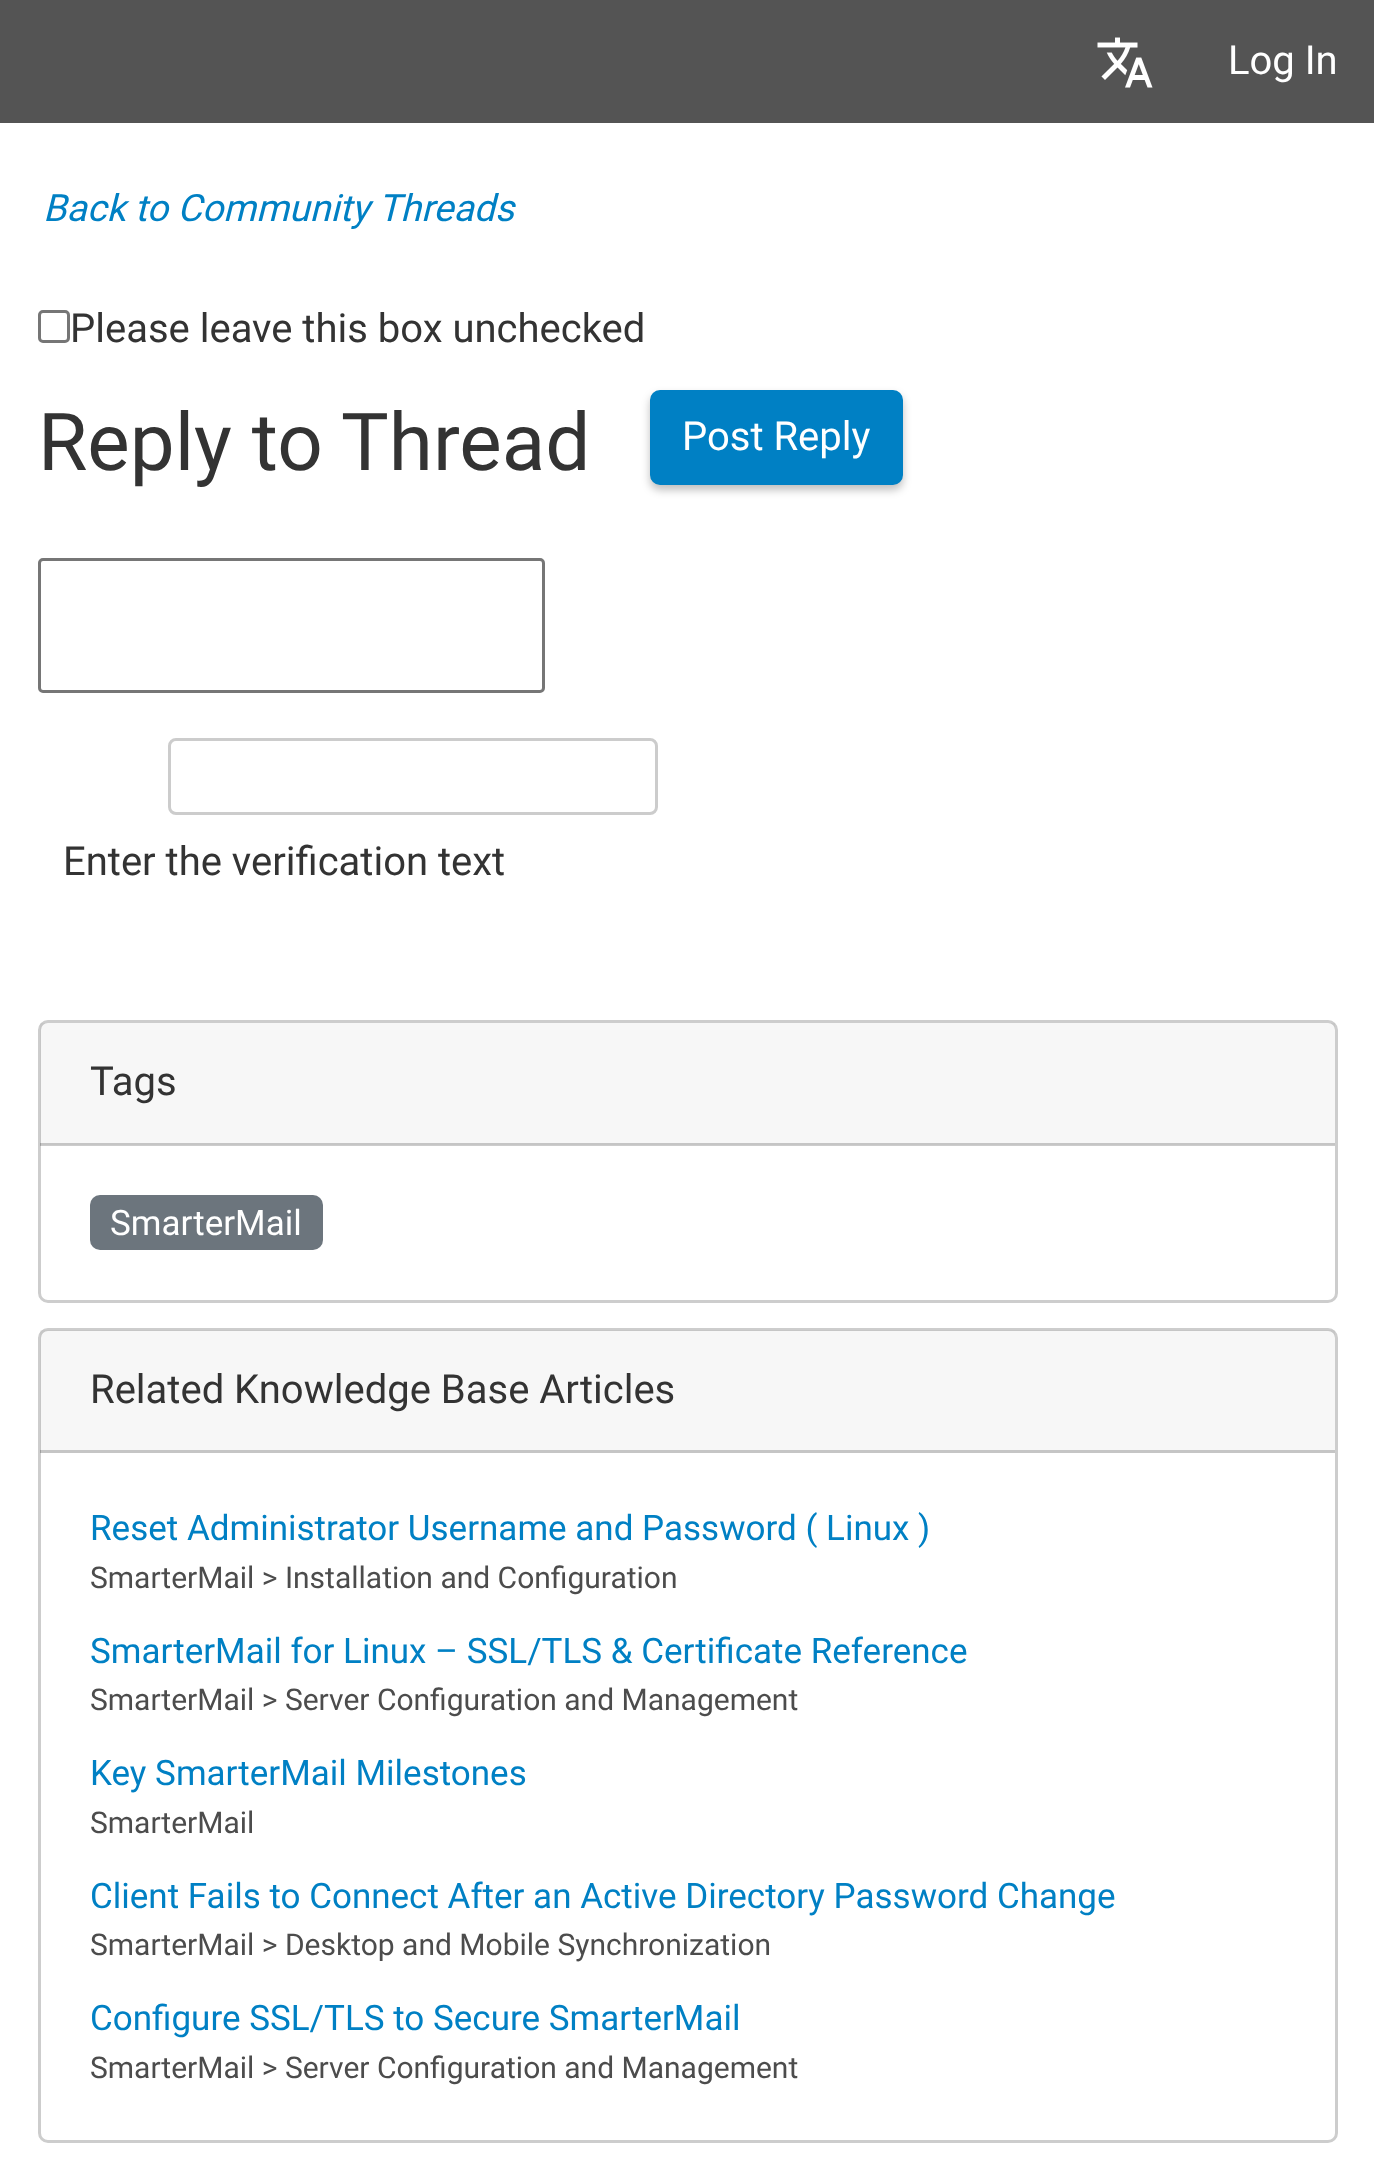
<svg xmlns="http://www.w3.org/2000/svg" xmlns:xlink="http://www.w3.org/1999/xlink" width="1374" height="2158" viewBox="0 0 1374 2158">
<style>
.cls-1{font:40px Roboto;fill:#ffffff}
.cls-2{font:italic 37.5px Roboto;fill:#0080c4}
.cls-3{font:40px Roboto;fill:#333333}
.cls-4{font:80px Roboto;fill:#333333}
.cls-5{font:35px Roboto;fill:#ffffff}
.cls-6{font:35px Roboto;fill:#0080c4}
.cls-7{font:30px Roboto;fill:#4c4c4c}
</style>
<rect width="100%" height="100%" fill="#ffffff"/>
<rect fill="#545454" x="0" y="0" width="1374" height="123"/>
<image xlink:href="image0.png" x="1097" y="37" width="56" height="51"/>
<rect fill="none" stroke="#767676" stroke-width="3" x="39.5" y="311.5" width="29" height="30" rx="3.5"/>
<rect fill="#000000" fill-opacity="0.25" filter="blur(4px)" x="650" y="395" width="253" height="95" rx="10"/>
<rect fill="#0080c4" stroke="#0080c4" stroke-width="3" x="651.5" y="391.5" width="250" height="92" rx="8.5"/>
<rect fill="none" stroke="#767676" stroke-width="3" x="39.5" y="559.5" width="504" height="132" rx="3.5"/>
<rect fill="none" stroke="#cccccc" stroke-width="3" x="169.5" y="739.5" width="487" height="74" rx="6.5"/>
<rect fill="none" stroke="#cdcdcd" stroke-width="3" x="39.5" y="1021.5" width="1297" height="280" rx="8.5"/>
<rect fill="#000000" fill-opacity="0.03" x="40" y="1023" width="1295" height="122"/>
<rect fill="#000000" fill-opacity="0.2" x="40" y="1143" width="1295" height="3"/>
<rect fill="#6c757d" x="90" y="1195" width="233" height="55" rx="10"/>
<rect fill="none" stroke="#cdcdcd" stroke-width="3" x="39.5" y="1329.5" width="1297" height="812" rx="8.5"/>
<rect fill="#000000" fill-opacity="0.03" x="40" y="1330" width="1295" height="123"/>
<rect fill="#000000" fill-opacity="0.2" x="40" y="1450" width="1295" height="3"/>
<text class="cls-1" x="1228" y="74">Log In</text>
<text class="cls-2" x="43" y="221">Back to Community Threads</text>
<text class="cls-3" x="70" y="342">Please leave this box unchecked</text>
<text class="cls-4" x="38" y="470">Reply to Thread</text>
<text class="cls-1" x="682" y="450">Post Reply</text>
<text class="cls-3" x="63" y="875">Enter the verification text</text>
<text class="cls-3" x="90" y="1095">Tags</text>
<text class="cls-5" x="110" y="1235">SmarterMail</text>
<text class="cls-3" x="90" y="1403">Related Knowledge Base Articles</text>
<text class="cls-6" x="90" y="1540">Reset Administrator Username and Password ( Linux )</text>
<text class="cls-7" x="90" y="1588">SmarterMail &gt; Installation and Configuration</text>
<text class="cls-6" x="90" y="1663">SmarterMail for Linux – SSL/TLS &amp; Certificate Reference</text>
<text class="cls-7" x="90" y="1710">SmarterMail &gt; Server Configuration and Management</text>
<text class="cls-6" x="90" y="1785">Key SmarterMail Milestones</text>
<text class="cls-7" x="90" y="1833">SmarterMail</text>
<text class="cls-6" x="90" y="1908">Client Fails to Connect After an Active Directory Password Change</text>
<text class="cls-7" x="90" y="1955">SmarterMail &gt; Desktop and Mobile Synchronization</text>
<text class="cls-6" x="90" y="2030">Configure SSL/TLS to Secure SmarterMail</text>
<text class="cls-7" x="90" y="2078">SmarterMail &gt; Server Configuration and Management</text>
</svg>
